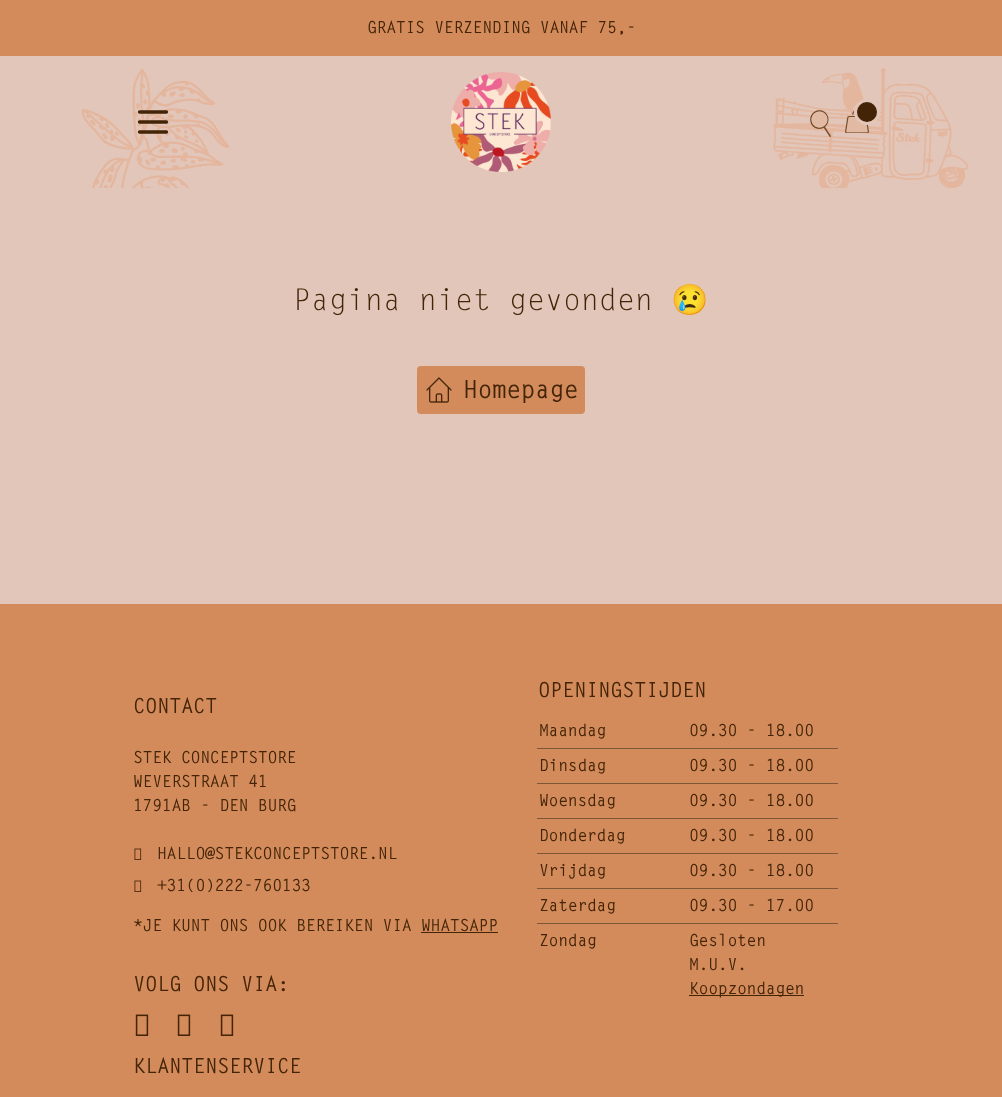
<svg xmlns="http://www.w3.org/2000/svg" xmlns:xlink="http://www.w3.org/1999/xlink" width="1002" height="1097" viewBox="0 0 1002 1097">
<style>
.cls-1{font:bold 16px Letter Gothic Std;fill:#432407}
.cls-2{font:30px Letter Gothic Std;fill:#432407}
.cls-3{font:30px Noto Color Emoji;fill:#432407}
.cls-4{font:bold 24px Letter Gothic Std;fill:#432407}
.cls-5{font:bold 20px Letter Gothic Std;fill:#432407}
</style>
<rect width="100%" height="100%" fill="#d38b5b"/>
<rect fill="#e2c6ba" x="0" y="56" width="1002" height="452"/>
<image xlink:href="image0.png" x="81" y="69" width="149" height="119"/>
<image xlink:href="image1.png" x="773" y="68" width="196" height="120"/>
<path fill="none" stroke="#432407" stroke-width="3.3" stroke-linecap="round" stroke-linejoin="round" d="M139.5 112H166.5M139.5 122H166.5M139.5 132H166.5"/>
<image xlink:href="image2.png" x="451" y="72" width="100" height="100"/>
<image xlink:href="image3.png" x="810" y="110" width="21" height="27"/>
<image xlink:href="image4.png" x="845" y="110" width="24" height="23"/>
<circle fill="none" stroke="#e2c6ba" stroke-width="3" cx="867" cy="112" r="11.5"/>
<circle fill="#432407" cx="867" cy="112" r="10"/>
<rect fill="#d38b5b" x="417" y="366" width="168" height="48" rx="4"/>
<image xlink:href="image5.png" x="426" y="377" width="26" height="26"/>
<rect fill="#e2c6ba" x="0" y="508" width="1002" height="96"/>
<image xlink:href="image6.png" x="134" y="848" width="8" height="12"/>
<image xlink:href="image6.png" x="134" y="880" width="8" height="12"/>
<rect fill="#432407" x="421" y="932" width="77" height="1"/>
<image xlink:href="image7.png" x="135" y="1014" width="14" height="22"/>
<image xlink:href="image7.png" x="177" y="1014" width="14" height="22"/>
<image xlink:href="image7.png" x="220" y="1014" width="14" height="22"/>
<rect fill="#7e5835" x="537" y="748" width="301" height="1"/>
<rect fill="#7e5835" x="537" y="783" width="301" height="1"/>
<rect fill="#7e5835" x="537" y="818" width="301" height="1"/>
<rect fill="#7e5835" x="537" y="853" width="301" height="1"/>
<rect fill="#7e5835" x="537" y="888" width="301" height="1"/>
<rect fill="#7e5835" x="537" y="923" width="301" height="1"/>
<rect fill="#432407" x="689" y="995" width="115" height="1"/>
<text class="cls-1" x="367" y="33">GRATIS VERZENDING VANAF 75,-</text>
<text class="cls-2" x="293" y="310">Pagina niet gevonden</text>
<text class="cls-3" x="671" y="310">😢</text>
<text class="cls-4" x="463" y="398">Homepage</text>
<text class="cls-5" x="133" y="713">CONTACT</text>
<text class="cls-1"><tspan x="133" y="763">STEK CONCEPTSTORE</tspan><tspan x="133" y="787">WEVERSTRAAT 41</tspan><tspan x="133" y="811">1791AB - DEN BURG</tspan></text>
<text class="cls-1" x="157" y="859">HALLO@STEKCONCEPTSTORE.NL</text>
<text class="cls-1" x="157" y="891">+31(0)222-760133</text>
<text class="cls-1" x="133" y="931">*JE KUNT ONS OOK BEREIKEN VIA WHATSAPP</text>
<text class="cls-5" x="133" y="991">VOLG ONS VIA:</text>
<text class="cls-5" x="133" y="1073">KLANTENSERVICE</text>
<text class="cls-5" x="538" y="697">OPENINGSTIJDEN</text>
<text class="cls-1" x="539" y="736">Maandag</text>
<text class="cls-1" x="689" y="736">09.30 - 18.00</text>
<text class="cls-1" x="539" y="771">Dinsdag</text>
<text class="cls-1" x="689" y="771">09.30 - 18.00</text>
<text class="cls-1" x="539" y="806">Woensdag</text>
<text class="cls-1" x="689" y="806">09.30 - 18.00</text>
<text class="cls-1" x="539" y="841">Donderdag</text>
<text class="cls-1" x="689" y="841">09.30 - 18.00</text>
<text class="cls-1" x="539" y="876">Vrijdag</text>
<text class="cls-1" x="689" y="876">09.30 - 18.00</text>
<text class="cls-1" x="539" y="911">Zaterdag</text>
<text class="cls-1" x="689" y="911">09.30 - 17.00</text>
<text class="cls-1" x="539" y="946">Zondag</text>
<text class="cls-1"><tspan x="689" y="946">Gesloten</tspan><tspan x="689" y="970">M.U.V.</tspan><tspan x="689" y="994">Koopzondagen</tspan></text>
</svg>
